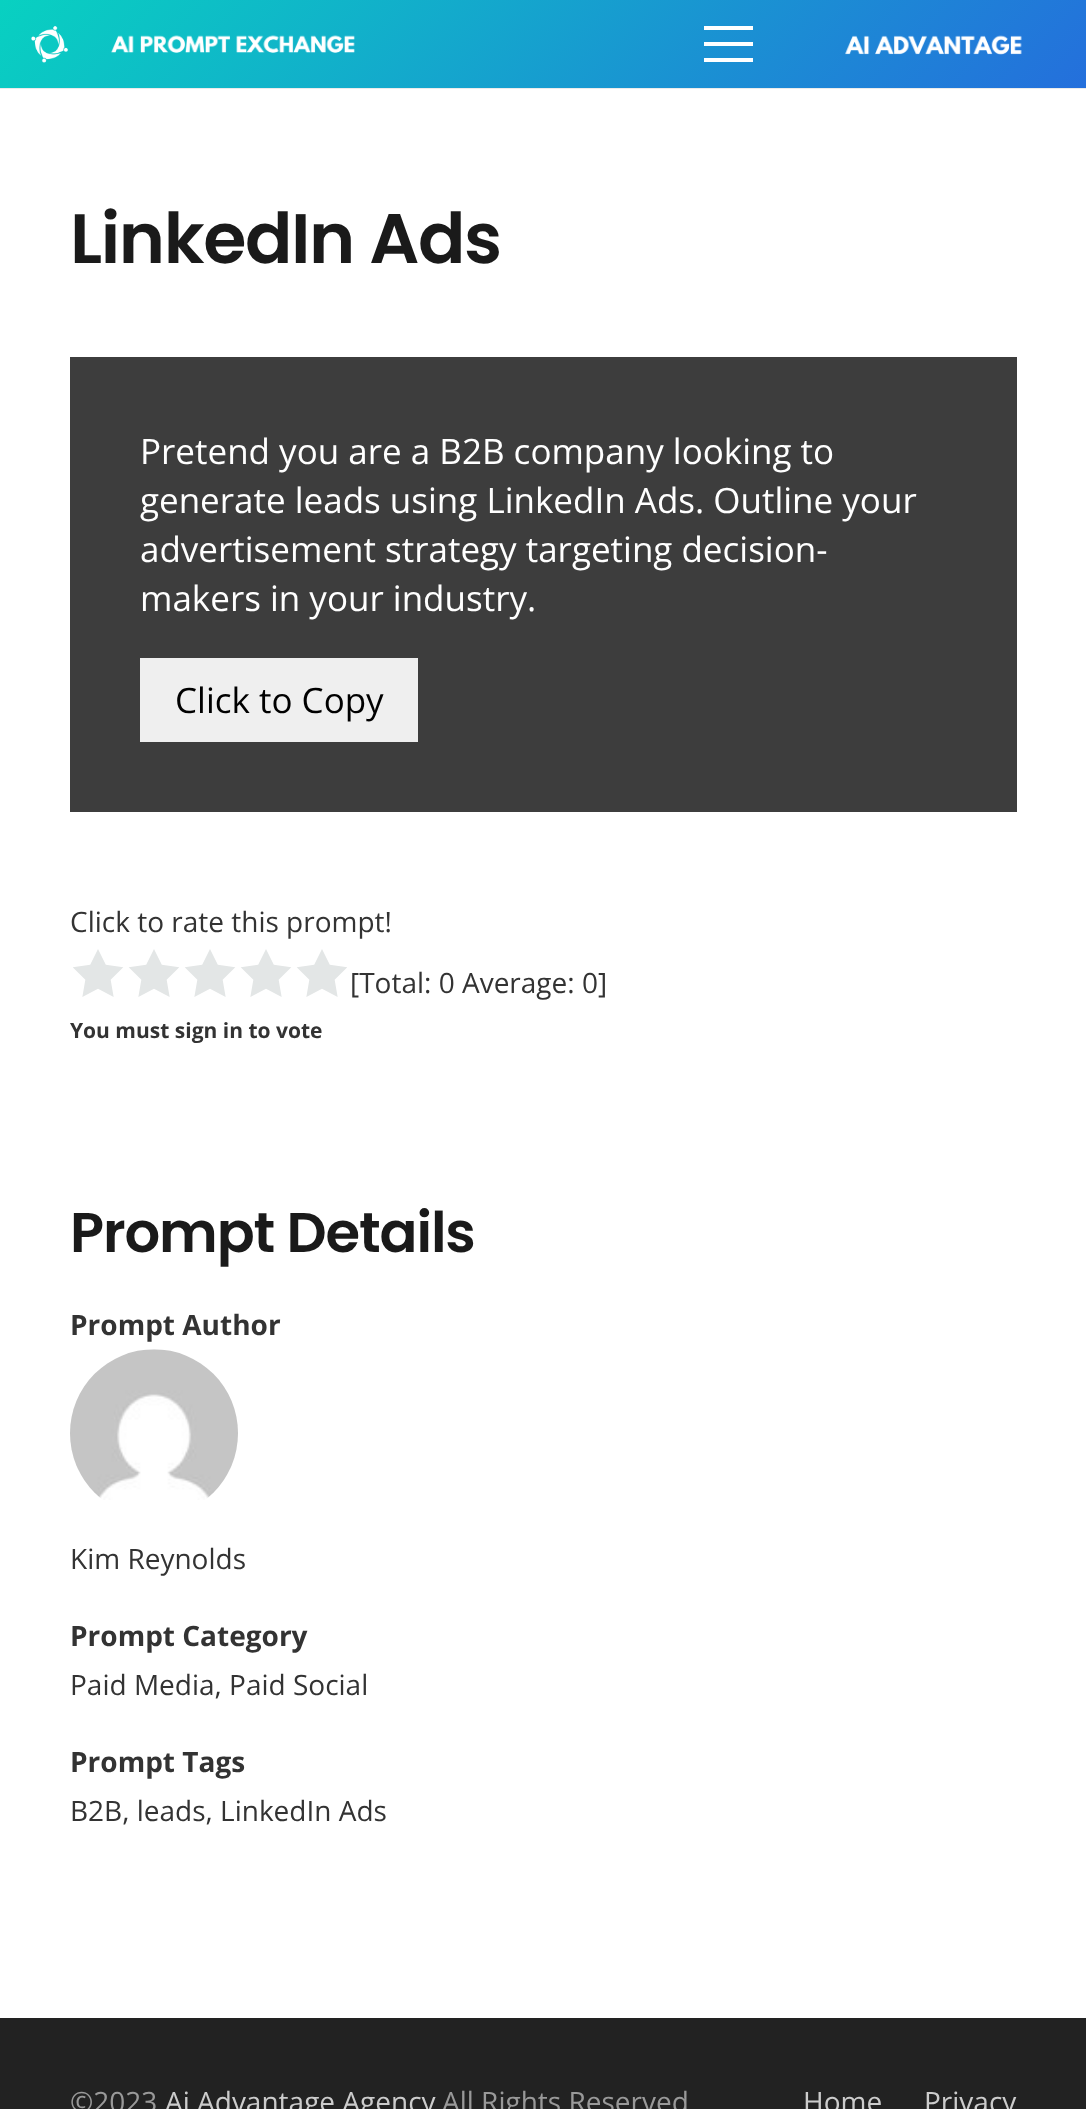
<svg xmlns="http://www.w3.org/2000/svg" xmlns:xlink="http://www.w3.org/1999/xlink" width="1086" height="2109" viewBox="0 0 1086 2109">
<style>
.cls-1{font:600 70px Poppins;letter-spacing:-1.4px;fill:#1a1a1a}
.cls-2{font:35px Open Sans;fill:#ffffff}
.cls-3{font:35px Open Sans;fill:#000000}
.cls-4{font:28px Open Sans;fill:#333333}
.cls-5{font:bold 21px Open Sans;fill:#333333}
.cls-6{font:600 56px Poppins;letter-spacing:-1.1px;fill:#1a1a1a}
.cls-7{font:bold 28px Open Sans;fill:#333333}
.cls-8{font:28px Open Sans;fill:#999999}
.cls-9{font:28px Open Sans;fill:#cccccc}
</style>
<defs>
<linearGradient id="g1" gradientUnits="userSpaceOnUse" x1="250" y1="-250" x2="837" y2="337"><stop offset="0" stop-color="#08d1c1"/><stop offset="1" stop-color="#246fdc"/></linearGradient>
</defs>
<rect width="100%" height="100%" fill="#ffffff"/>
<path fill="#ebebeb" d="M0 88V89H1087V2V88Z"/>
<rect fill="url(#g1)" x="0" y="0" width="1086" height="88"/>
<image xlink:href="image0.png" x="31" y="26" width="38" height="37"/>
<image xlink:href="image1.png" x="111" y="35" width="244" height="18"/>
<rect fill="#ffffff" x="704" y="42" width="49" height="4"/>
<rect fill="#ffffff" x="704" y="26" width="49" height="4"/>
<rect fill="#ffffff" x="704" y="58" width="49" height="4"/>
<image xlink:href="image2.png" x="845" y="35" width="177" height="20"/>
<rect fill="#3d3d3d" x="70" y="357" width="947" height="455"/>
<rect fill="#efefef" x="140" y="658" width="278" height="84"/>
<image xlink:href="image3.png" x="73" y="949" width="274" height="48"/>
<image xlink:href="image4.png" x="70" y="1349" width="168" height="151"/>
<rect fill="#222222" x="0" y="2018" width="1086" height="91"/>
<text class="cls-1" x="70" y="263">LinkedIn Ads</text>
<text class="cls-2"><tspan x="140" y="464">Pretend you are a B2B company looking to</tspan><tspan x="140" y="513">generate leads using LinkedIn Ads. Outline your</tspan><tspan x="140" y="562">advertisement strategy targeting decision-</tspan><tspan x="140" y="611">makers in your industry.</tspan></text>
<text class="cls-3" x="175" y="713">Click to Copy</text>
<text class="cls-4" x="70" y="932">Click to rate this prompt!</text>
<text class="cls-4" x="350" y="993">[Total: 0 Average: 0]</text>
<text class="cls-5" x="70" y="1038">You must sign in to vote</text>
<text class="cls-6" x="70" y="1252">Prompt Details</text>
<text class="cls-7" x="70" y="1335">Prompt Author</text>
<text class="cls-4" x="70" y="1569">Kim Reynolds</text>
<text class="cls-7" x="70" y="1646">Prompt Category</text>
<text class="cls-4" x="70" y="1695">Paid Media, Paid Social</text>
<text class="cls-7" x="70" y="1772">Prompt Tags</text>
<text class="cls-4" x="70" y="1821">B2B, leads, LinkedIn Ads</text>
<text class="cls-8" x="70" y="2112">©2023</text>
<text class="cls-9" x="165" y="2112">Ai Advantage Agency</text>
<text class="cls-8" x="442" y="2112">All Rights Reserved</text>
<text class="cls-9" x="803" y="2112">Home</text>
<text class="cls-9" x="924" y="2112">Privacy</text>
</svg>
